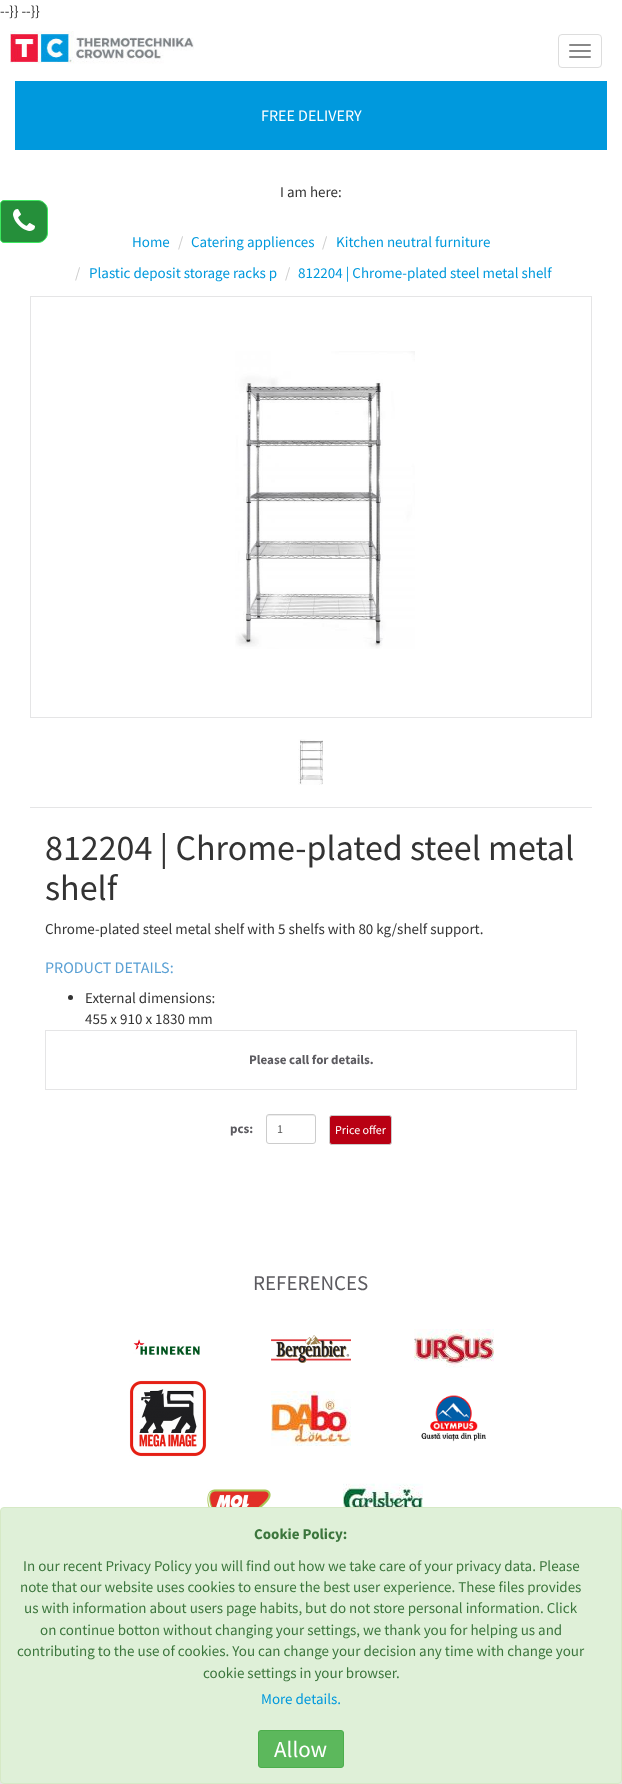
<svg xmlns="http://www.w3.org/2000/svg" xmlns:xlink="http://www.w3.org/1999/xlink" width="622" height="1784" viewBox="0 0 622 1784">
<style>
.cls-1{font:15px Source Sans Pro;fill:#333333}
.cls-2{font:16px Source Sans Pro;fill:#ffffff}
.cls-3{font:15px Source Sans Pro;fill:#0099dd}
.cls-4{font:15px Source Sans Pro;fill:#cccccc}
.cls-5{font:36px Source Sans Pro;fill:#333333}
.cls-6{font:16px Source Sans Pro;fill:#5aa0d4}
.cls-7{font:bold 13px Source Sans Pro;fill:#5c5b60}
.cls-8{font:12px Source Sans Pro;fill:#555555}
.cls-9{font:12px Source Sans Pro;fill:#ffffff}
.cls-10{font:21px Source Sans Pro;fill:#5c5b60}
.cls-11{font:bold 15px Source Sans Pro;fill:#3c763d}
.cls-12{font:15px Source Sans Pro;fill:#3c763d}
.cls-13{font:23px Source Sans Pro;fill:#ffffff}
</style>
<rect width="100%" height="100%" fill="#ffffff"/>
<image xlink:href="image0.png" x="10" y="31" width="184" height="33"/>
<rect fill="none" stroke="#dddddd" x="558.5" y="34.5" width="43" height="33" rx="3.5"/>
<rect fill="#888888" x="569" y="44" width="22" height="2" rx="1"/>
<rect fill="#888888" x="569" y="50" width="22" height="2" rx="1"/>
<rect fill="#888888" x="569" y="56" width="22" height="2" rx="1"/>
<rect fill="#0099dd" x="15" y="81" width="592" height="69"/>
<path fill="#258f3a" stroke="#3ce95f" d="M4 200.5H38C43 200.5 47.5 205 47.5 210V233C47.5 238 43 242.5 38 242.5H4C2 242.5 .5 241 .5 239V204C.5 202 2 200.5 4 200.5Z"/>
<image xlink:href="image1.png" x="13" y="209" width="22" height="22"/>
<rect fill="none" stroke="#e5e5e6" x="30.5" y="296.5" width="561" height="421"/>
<image xlink:href="image2.png" x="235" y="351" width="180" height="298"/>
<rect fill="#e5e5e6" x="30" y="807" width="562" height="1"/>
<image xlink:href="image3.png" x="298" y="739" width="25" height="46"/>
<circle fill="#333333" cx="70.5" cy="997.5" r="2.5"/>
<rect fill="none" stroke="#e5e5e6" x="45.5" y="1030.5" width="531" height="59"/>
<path fill="#ececec" d="M269 1116H313C314 1116 315 1117 315 1118C315 1113 310 1115 306 1115H276C272 1115 267 1113 267 1118C267 1117 268 1116 269 1116Z"/>
<rect fill="none" stroke="#cccccc" x="266.5" y="1114.5" width="49" height="29" rx="2.5"/>
<rect fill="#b90013" stroke="#cccccc" x="329.5" y="1115.5" width="62" height="29" rx="2.5"/>
<image xlink:href="image4.png" x="133" y="1339" width="67" height="16"/>
<image xlink:href="image5.png" x="271" y="1335" width="80" height="28"/>
<image xlink:href="image6.png" x="414" y="1329" width="80" height="39"/>
<image xlink:href="image7.png" x="129" y="1380" width="78" height="77"/>
<image xlink:href="image8.png" x="271" y="1391" width="80" height="55"/>
<image xlink:href="image9.png" x="421" y="1395" width="65" height="47"/>
<image xlink:href="image10.png" x="207" y="1489" width="64" height="18"/>
<image xlink:href="image11.png" x="343" y="1483" width="80" height="24"/>
<rect fill="#e5e5e6" x="0" y="1780" width="622" height="4"/>
<rect fill="#dff0d8" stroke="#d6e9c6" x="0.5" y="1507.5" width="621" height="276" rx="3.5"/>
<rect fill="#5cb85c" stroke="#4cae4c" x="258.5" y="1730.5" width="85" height="37" rx="2.5"/>
<text class="cls-1" x="0" y="16">--}} --}}</text>
<text class="cls-2" x="261" y="121">FREE DELIVERY</text>
<text class="cls-1" x="280" y="197">I am here:</text>
<text class="cls-3" x="132" y="247">Home</text>
<text class="cls-4" x="178" y="247">/</text>
<text class="cls-3" x="191" y="247">Catering appliences</text>
<text class="cls-4" x="322" y="247">/</text>
<text class="cls-3" x="336" y="247">Kitchen neutral furniture</text>
<text class="cls-4" x="75" y="278">/</text>
<text class="cls-3" x="89" y="278">Plastic deposit storage racks p</text>
<text class="cls-4" x="285" y="278">/</text>
<text class="cls-3" x="298" y="278">812204 | Chrome-plated steel metal shelf</text>
<text class="cls-5"><tspan x="45" y="860">812204 | Chrome-plated steel metal</tspan><tspan x="45" y="900">shelf</tspan></text>
<text class="cls-1" x="45" y="934">Chrome-plated steel metal shelf with 5 shelfs with 80 kg/shelf support.</text>
<text class="cls-6" x="45" y="973">PRODUCT DETAILS:</text>
<text class="cls-1"><tspan x="85" y="1003">External dimensions:</tspan><tspan x="85" y="1024">455 x 910 x 1830 mm</tspan></text>
<text class="cls-7" x="249" y="1064">Please call for details.</text>
<text class="cls-7" x="230" y="1133">pcs:</text>
<text class="cls-8" x="277" y="1133">1</text>
<text class="cls-9" x="335" y="1134">Price offer</text>
<text class="cls-10" x="253" y="1290">REFERENCES</text>
<text class="cls-11" x="254" y="1539">Cookie Policy:</text>
<text class="cls-12" x="23" y="1571">In our recent Privacy Policy you will find out how we take care of your privacy data. Please</text>
<text class="cls-12" x="20" y="1592">note that our website uses cookies to ensure the best user experience. These files provides</text>
<text class="cls-12" x="24" y="1613">us with information about users page habits, but do not store personal information. Click</text>
<text class="cls-12" x="40" y="1635">on continue botton without changing your settings, we thank you for helping us and</text>
<text class="cls-12" x="17" y="1656">contributing to the use of cookies. You can change your decision any time with change your</text>
<text class="cls-12" x="203" y="1678">cookie settings in your browser.</text>
<text class="cls-3" x="261" y="1704">More details.</text>
<text class="cls-13" x="274" y="1757">Allow</text>
</svg>
